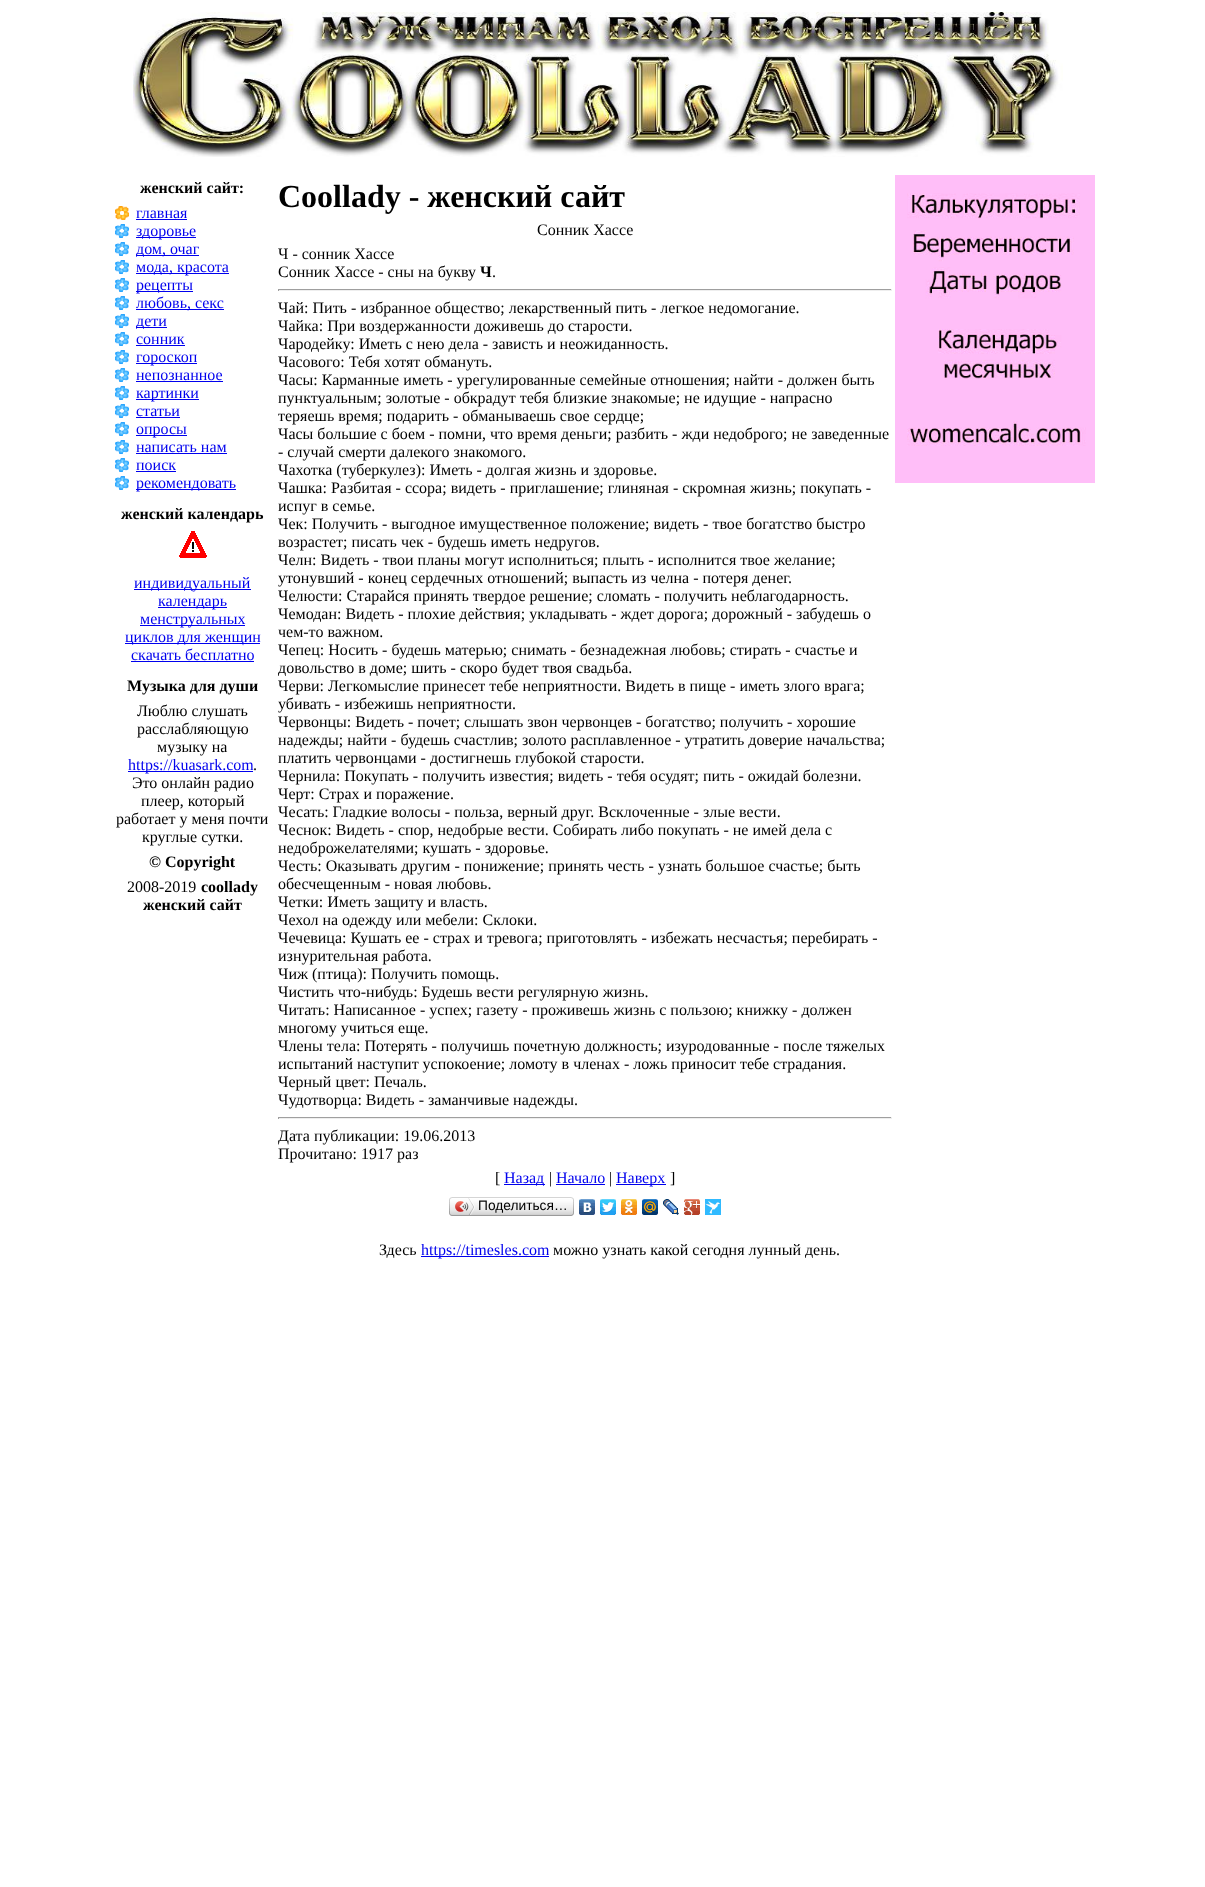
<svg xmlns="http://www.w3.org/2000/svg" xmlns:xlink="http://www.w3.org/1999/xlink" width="1205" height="1887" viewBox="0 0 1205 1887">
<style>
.cls-1{font:bold 16px Liberation Serif;fill:#000000}
.cls-2{font:16px Liberation Serif;fill:#0000ee}
.cls-3{font:16px Liberation Serif;fill:#000000}
.cls-4{font:bold 32px Liberation Serif;fill:#000000}
.cls-5{font:13.75px Liberation Sans;fill:#000000}
</style>
<rect width="100%" height="100%" fill="#ffffff"/>
<image xlink:href="image0.png" x="133" y="12" width="930" height="145"/>
<image xlink:href="image1.png" x="115" y="206" width="14" height="14"/>
<rect fill="#0000ee" x="136" y="219" width="51" height="1"/>
<image xlink:href="image2.png" x="115" y="224" width="14" height="14"/>
<rect fill="#0000ee" x="136" y="237" width="60" height="1"/>
<image xlink:href="image2.png" x="115" y="242" width="14" height="14"/>
<rect fill="#0000ee" x="136" y="255" width="63" height="1"/>
<image xlink:href="image2.png" x="115" y="260" width="14" height="14"/>
<rect fill="#0000ee" x="136" y="273" width="93" height="1"/>
<image xlink:href="image2.png" x="115" y="278" width="14" height="14"/>
<rect fill="#0000ee" x="136" y="291" width="57" height="1"/>
<image xlink:href="image2.png" x="115" y="296" width="14" height="14"/>
<rect fill="#0000ee" x="136" y="309" width="88" height="1"/>
<image xlink:href="image2.png" x="115" y="314" width="14" height="14"/>
<rect fill="#0000ee" x="136" y="327" width="31" height="1"/>
<image xlink:href="image2.png" x="115" y="332" width="14" height="14"/>
<rect fill="#0000ee" x="136" y="345" width="49" height="1"/>
<image xlink:href="image2.png" x="115" y="350" width="14" height="14"/>
<rect fill="#0000ee" x="136" y="363" width="61" height="1"/>
<image xlink:href="image2.png" x="115" y="368" width="14" height="14"/>
<rect fill="#0000ee" x="136" y="381" width="87" height="1"/>
<image xlink:href="image2.png" x="115" y="386" width="14" height="14"/>
<rect fill="#0000ee" x="136" y="399" width="63" height="1"/>
<image xlink:href="image2.png" x="115" y="404" width="14" height="14"/>
<rect fill="#0000ee" x="136" y="417" width="44" height="1"/>
<image xlink:href="image2.png" x="115" y="422" width="14" height="14"/>
<rect fill="#0000ee" x="136" y="435" width="51" height="1"/>
<image xlink:href="image2.png" x="115" y="440" width="14" height="14"/>
<rect fill="#0000ee" x="136" y="453" width="91" height="1"/>
<image xlink:href="image2.png" x="115" y="458" width="14" height="14"/>
<rect fill="#0000ee" x="136" y="471" width="40" height="1"/>
<image xlink:href="image2.png" x="115" y="476" width="14" height="14"/>
<rect fill="#0000ee" x="136" y="489" width="100" height="1"/>
<image xlink:href="image3.png" x="179" y="531" width="28" height="27"/>
<rect fill="#0000ee" x="134" y="589" width="117" height="1"/>
<rect fill="#0000ee" x="158" y="607" width="69" height="1"/>
<rect fill="#0000ee" x="140" y="625" width="105" height="1"/>
<rect fill="#0000ee" x="125" y="643" width="135" height="1"/>
<rect fill="#0000ee" x="131" y="661" width="123" height="1"/>
<rect fill="#0000ee" x="128" y="771" width="125" height="1"/>
<rect fill="#9f9f9f" x="278" y="289" width="614" height="1"/>
<rect fill="#eeeeee" x="891" y="289" width="1" height="2"/>
<rect fill="#eeeeee" x="278" y="290" width="614" height="1"/>
<rect fill="#9f9f9f" x="278" y="289" width="1" height="2"/>
<rect fill="#9f9f9f" x="278" y="1117" width="614" height="1"/>
<rect fill="#eeeeee" x="891" y="1117" width="1" height="2"/>
<rect fill="#eeeeee" x="278" y="1118" width="614" height="1"/>
<rect fill="#9f9f9f" x="278" y="1117" width="1" height="2"/>
<rect fill="#0000ee" x="504" y="1184" width="41" height="1"/>
<rect fill="#0000ee" x="556" y="1184" width="49" height="1"/>
<rect fill="#0000ee" x="616" y="1184" width="50" height="1"/>
<image xlink:href="image4.png" x="452" y="1197" width="119" height="19"/>
<image xlink:href="image5.png" x="449" y="1197" width="3" height="19"/>
<image xlink:href="image6.png" x="455" y="1198" width="20" height="17"/>
<image xlink:href="image7.png" x="571" y="1197" width="3" height="19"/>
<image xlink:href="image8.png" x="579" y="1199" width="16" height="16"/>
<image xlink:href="image9.png" x="600" y="1199" width="16" height="16"/>
<image xlink:href="image10.png" x="621" y="1199" width="16" height="16"/>
<image xlink:href="image11.png" x="642" y="1199" width="16" height="16"/>
<image xlink:href="image12.png" x="663" y="1199" width="16" height="16"/>
<image xlink:href="image13.png" x="684" y="1199" width="16" height="16"/>
<image xlink:href="image14.png" x="705" y="1199" width="16" height="16"/>
<image xlink:href="image15.png" x="895" y="175" width="200" height="308"/>
<rect fill="#0000ee" x="421" y="1256" width="128" height="1"/>
<text class="cls-1" x="140" y="193">женский сайт:</text>
<text class="cls-2"><tspan x="136" y="218">главная</tspan><tspan x="136" y="236">здоровье</tspan><tspan x="136" y="254">дом, очаг</tspan><tspan x="136" y="272">мода, красота</tspan><tspan x="136" y="290">рецепты</tspan><tspan x="136" y="308">любовь, секс</tspan><tspan x="136" y="326">дети</tspan><tspan x="136" y="344">сонник</tspan><tspan x="136" y="362">гороскоп</tspan><tspan x="136" y="380">непознанное</tspan><tspan x="136" y="398">картинки</tspan><tspan x="136" y="416">статьи</tspan><tspan x="136" y="434">опросы</tspan><tspan x="136" y="452">написать нам</tspan><tspan x="136" y="470">поиск</tspan><tspan x="136" y="488">рекомендовать</tspan></text>
<text class="cls-1" x="121" y="519">женский календарь</text>
<text class="cls-2" x="134" y="588">индивидуальный</text>
<text class="cls-2" x="158" y="606">календарь</text>
<text class="cls-2" x="140" y="624">менструальных</text>
<text class="cls-2" x="125" y="642">циклов для женщин</text>
<text class="cls-2" x="131" y="660">скачать бесплатно</text>
<text class="cls-1" x="127" y="691">Музыка для души</text>
<text class="cls-3"><tspan x="137" y="716">Люблю слушать</tspan><tspan x="137" y="734">расслабляющую</tspan></text>
<text class="cls-3" x="157" y="752">музыку на</text>
<text class="cls-2" x="128" y="770">https://kuasark.com</text>
<text class="cls-3" x="253" y="770">.</text>
<text class="cls-3" x="132" y="788">Это онлайн радио</text>
<text class="cls-3" x="141" y="806">плеер, который</text>
<text class="cls-3" x="116" y="824">работает у меня почти</text>
<text class="cls-3" x="142" y="842">круглые сутки.</text>
<text class="cls-1" x="149" y="867">© Copyright</text>
<text class="cls-3" x="127" y="892">2008-2019</text>
<text class="cls-1" x="201" y="892">coollady</text>
<text class="cls-1" x="143" y="910">женский сайт</text>
<text class="cls-4" x="278" y="207">Coollady - женский сайт</text>
<text class="cls-3" x="537" y="235">Сонник Хассе</text>
<text class="cls-3"><tspan x="278" y="259">Ч - сонник Хассе</tspan><tspan x="278" y="277">Сонник Хассе - сны на букву</tspan></text>
<text class="cls-1" x="480" y="277">Ч</text>
<text class="cls-3" x="492" y="277">.</text>
<text class="cls-3"><tspan x="278" y="313">Чай: Пить - избранное общество; лекарственный пить - легкое недомогание.</tspan><tspan x="278" y="331">Чайка: При воздержанности доживешь до старости.</tspan><tspan x="278" y="349">Чародейку: Иметь с нею дела - зависть и неожиданность.</tspan><tspan x="278" y="367">Часового: Тебя хотят обмануть.</tspan><tspan x="278" y="385">Часы: Карманные иметь - урегулированные семейные отношения; найти - должен быть</tspan><tspan x="278" y="403">пунктуальным; золотые - обкрадут тебя близкие знакомые; не идущие - напрасно</tspan><tspan x="278" y="421">теряешь время; подарить - обманываешь свое сердце;</tspan><tspan x="278" y="439">Часы большие с боем - помни, что время деньги; разбить - жди недоброго; не заведенные</tspan><tspan x="278" y="457">- случай смерти далекого знакомого.</tspan><tspan x="278" y="475">Чахотка (туберкулез): Иметь - долгая жизнь и здоровье.</tspan><tspan x="278" y="493">Чашка: Разбитая - ссора; видеть - приглашение; глиняная - скромная жизнь; покупать -</tspan><tspan x="278" y="511">испуг в семье.</tspan><tspan x="278" y="529">Чек: Получить - выгодное имущественное положение; видеть - твое богатство быстро</tspan><tspan x="278" y="547">возрастет; писать чек - будешь иметь недругов.</tspan><tspan x="278" y="565">Челн: Видеть - твои планы могут исполниться; плыть - исполнится твое желание;</tspan><tspan x="278" y="583">утонувший - конец сердечных отношений; выпасть из челна - потеря денег.</tspan><tspan x="278" y="601">Челюсти: Старайся принять твердое решение; сломать - получить неблагодарность.</tspan><tspan x="278" y="619">Чемодан: Видеть - плохие действия; укладывать - ждет дорога; дорожный - забудешь о</tspan><tspan x="278" y="637">чем-то важном.</tspan><tspan x="278" y="655">Чепец: Носить - будешь матерью; снимать - безнадежная любовь; стирать - счастье и</tspan><tspan x="278" y="673">довольство в доме; шить - скоро будет твоя свадьба.</tspan><tspan x="278" y="691">Черви: Легкомыслие принесет тебе неприятности. Видеть в пище - иметь злого врага;</tspan><tspan x="278" y="709">убивать - избежишь неприятности.</tspan><tspan x="278" y="727">Червонцы: Видеть - почет; слышать звон червонцев - богатство; получить - хорошие</tspan><tspan x="278" y="745">надежды; найти - будешь счастлив; золото расплавленное - утратить доверие начальства;</tspan><tspan x="278" y="763">платить червонцами - достигнешь глубокой старости.</tspan><tspan x="278" y="781">Чернила: Покупать - получить известия; видеть - тебя осудят; пить - ожидай болезни.</tspan><tspan x="278" y="799">Черт: Страх и поражение.</tspan><tspan x="278" y="817">Чесать: Гладкие волосы - польза, верный друг. Всклоченные - злые вести.</tspan><tspan x="278" y="835">Чеснок: Видеть - спор, недобрые вести. Собирать либо покупать - не имей дела с</tspan><tspan x="278" y="853">недоброжелателями; кушать - здоровье.</tspan><tspan x="278" y="871">Честь: Оказывать другим - понижение; принять честь - узнать большое счастье; быть</tspan><tspan x="278" y="889">обесчещенным - новая любовь.</tspan><tspan x="278" y="907">Четки: Иметь защиту и власть.</tspan><tspan x="278" y="925">Чехол на одежду или мебели: Склоки.</tspan><tspan x="278" y="943">Чечевица: Кушать ее - страх и тревога; приготовлять - избежать несчастья; перебирать -</tspan><tspan x="278" y="961">изнурительная работа.</tspan><tspan x="278" y="979">Чиж (птица): Получить помощь.</tspan><tspan x="278" y="997">Чистить что-нибудь: Будешь вести регулярную жизнь.</tspan><tspan x="278" y="1015">Читать: Написанное - успех; газету - проживешь жизнь с пользою; книжку - должен</tspan><tspan x="278" y="1033">многому учиться еще.</tspan><tspan x="278" y="1051">Члены тела: Потерять - получишь почетную должность; изуродованные - после тяжелых</tspan><tspan x="278" y="1069">испытаний наступит успокоение; ломоту в членах - ложь приносит тебе страдания.</tspan><tspan x="278" y="1087">Черный цвет: Печаль.</tspan><tspan x="278" y="1105">Чудотворца: Видеть - заманчивые надежды.</tspan></text>
<text class="cls-3"><tspan x="278" y="1141">Дата публикации: 19.06.2013</tspan><tspan x="278" y="1159">Прочитано: 1917 раз</tspan></text>
<text class="cls-3" x="495" y="1183">[</text>
<text class="cls-2" x="504" y="1183">Назад</text>
<text class="cls-3" x="549" y="1183">|</text>
<text class="cls-2" x="556" y="1183">Начало</text>
<text class="cls-3" x="609" y="1183">|</text>
<text class="cls-2" x="616" y="1183">Наверх</text>
<text class="cls-3" x="670" y="1183">]</text>
<text class="cls-5" x="478" y="1210">Поделиться…</text>
<text class="cls-3" x="379" y="1255">Здесь</text>
<text class="cls-2" x="421" y="1255">https://timesles.com</text>
<text class="cls-3" x="553" y="1255">можно узнать какой сегодня лунный день.</text>
</svg>
